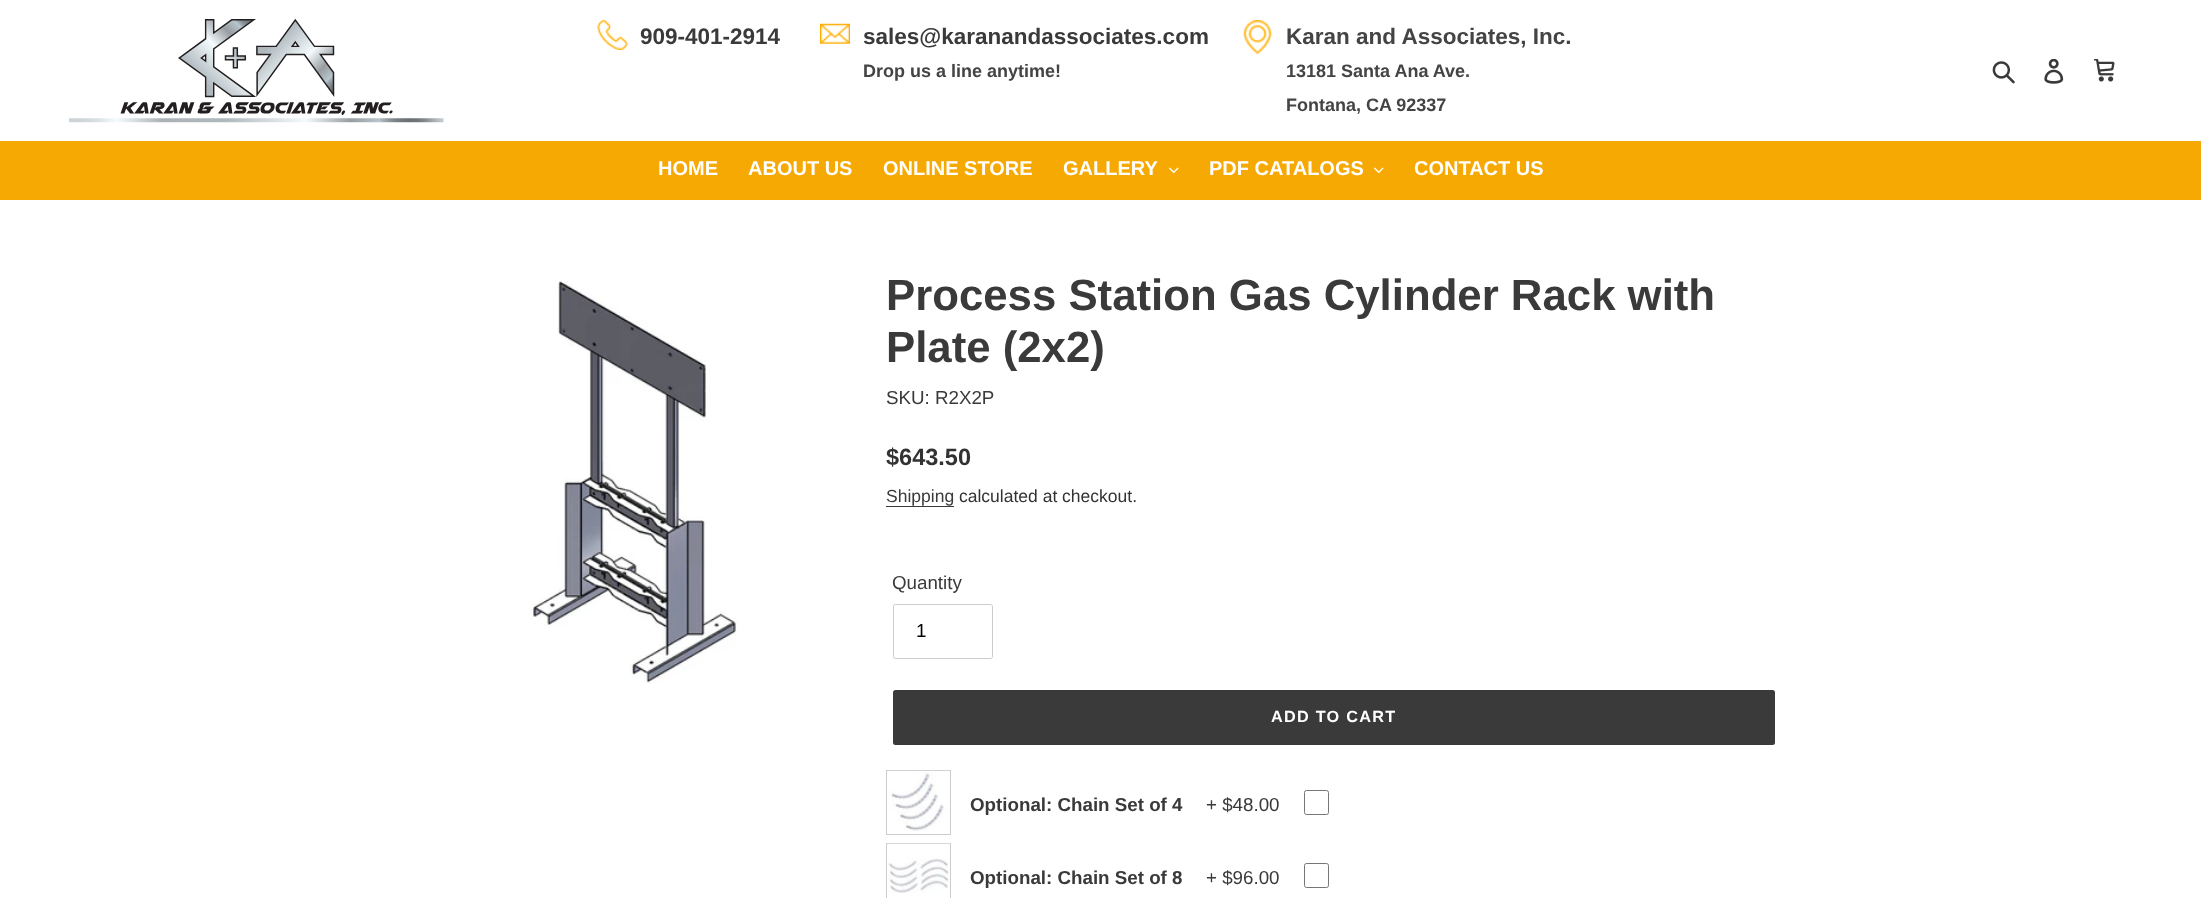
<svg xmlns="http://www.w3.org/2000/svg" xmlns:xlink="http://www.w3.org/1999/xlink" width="2201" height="898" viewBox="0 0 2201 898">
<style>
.cls-1{font:bold 22.5px Liberation Sans;fill:#3a3a3a}
.cls-2{font:bold 18px Liberation Sans;fill:#444444}
.cls-3{font:bold 22.5px Liberation Sans;fill:#444444}
.cls-4{font:bold 20px Liberation Sans;fill:#ffffff}
.cls-5{font:bold 43.75px Liberation Sans;fill:#3a3a3a}
.cls-6{font:18.75px Liberation Sans;fill:#3a3a3a}
.cls-7{font:bold 23.5px Liberation Sans;fill:#333232}
.cls-8{font:17.5px Liberation Sans;fill:#3a3a3a}
.cls-9{font:17.5px Liberation Sans;fill:#333232}
.cls-10{font:18.75px Liberation Sans;fill:#000000}
.cls-11{font:bold 16.25px Liberation Sans;letter-spacing:1.25px;fill:#ffffff}
.cls-12{font:bold 18.75px Liberation Sans;fill:#3a3a3a}
</style>
<rect width="100%" height="100%" fill="#ffffff"/>
<image xlink:href="image0.png" x="69" y="19" width="375" height="104"/>
<image xlink:href="image1.png" x="597" y="20" width="31" height="30"/>
<image xlink:href="image2.png" x="820" y="23" width="30" height="21"/>
<image xlink:href="image3.png" x="1243" y="20" width="29" height="34"/>
<image xlink:href="image4.png" x="1992" y="61" width="23" height="23"/>
<image xlink:href="image5.png" x="2044" y="59" width="20" height="25"/>
<image xlink:href="image6.png" x="2094" y="59" width="21" height="23"/>
<rect fill="#f7a903" x="0" y="141" width="2201" height="59"/>
<image xlink:href="image7.png" x="1169" y="167" width="10" height="6"/>
<image xlink:href="image7.png" x="1374" y="167" width="10" height="6"/>
<image xlink:href="image8.png" x="530" y="281" width="208" height="403"/>
<rect fill="#3a3a3a" x="886" y="506" width="68" height="1"/>
<rect fill="none" stroke="#cccccc" x="893.5" y="604.5" width="99" height="54" rx="2"/>
<rect fill="#3a3a3a" x="893" y="690" width="882" height="55" rx="2.5"/>
<rect fill="none" stroke="#cccccc" x="886.5" y="770.5" width="64" height="64"/>
<image xlink:href="image9.png" x="888" y="770" width="62" height="61"/>
<rect fill="none" stroke="#767676" x="1304.5" y="790.5" width="24" height="24" rx="2"/>
<rect fill="none" stroke="#cccccc" x="886.5" y="843.5" width="64" height="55"/>
<image xlink:href="image10.png" x="887" y="843" width="63" height="50"/>
<rect fill="none" stroke="#767676" x="1304.5" y="863.5" width="24" height="24" rx="2"/>
<text class="cls-1" x="640" y="44">909-401-2914</text>
<text class="cls-1" x="863" y="44">sales@karanandassociates.com</text>
<text class="cls-2" x="863" y="77">Drop us a line anytime!</text>
<text class="cls-3" x="1286" y="44">Karan and Associates, Inc.</text>
<text class="cls-2"><tspan x="1286" y="77">13181 Santa Ana Ave.</tspan><tspan x="1286" y="111">Fontana, CA 92337</tspan></text>
<text class="cls-4" x="658" y="175">HOME</text>
<text class="cls-4" x="748" y="175">ABOUT US</text>
<text class="cls-4" x="883" y="175">ONLINE STORE</text>
<text class="cls-4" x="1063" y="175">GALLERY</text>
<text class="cls-4" x="1209" y="175">PDF CATALOGS</text>
<text class="cls-4" x="1414" y="175">CONTACT US</text>
<text class="cls-5"><tspan x="886" y="310">Process Station Gas Cylinder Rack with</tspan><tspan x="886" y="362">Plate (2x2)</tspan></text>
<text class="cls-6" x="886" y="404">SKU: R2X2P</text>
<text class="cls-7" x="886" y="465">$643.50</text>
<text class="cls-8" x="886" y="502">Shipping</text>
<text class="cls-9" x="959" y="502">calculated at checkout.</text>
<text class="cls-6" x="892" y="589">Quantity</text>
<text class="cls-10" x="916" y="637">1</text>
<text class="cls-11" x="1271" y="722">ADD TO CART</text>
<text class="cls-12" x="970" y="811">Optional: Chain Set of 4</text>
<text class="cls-6" x="1206" y="811">+ $48.00</text>
<text class="cls-12" x="970" y="884">Optional: Chain Set of 8</text>
<text class="cls-6" x="1206" y="884">+ $96.00</text>
</svg>
